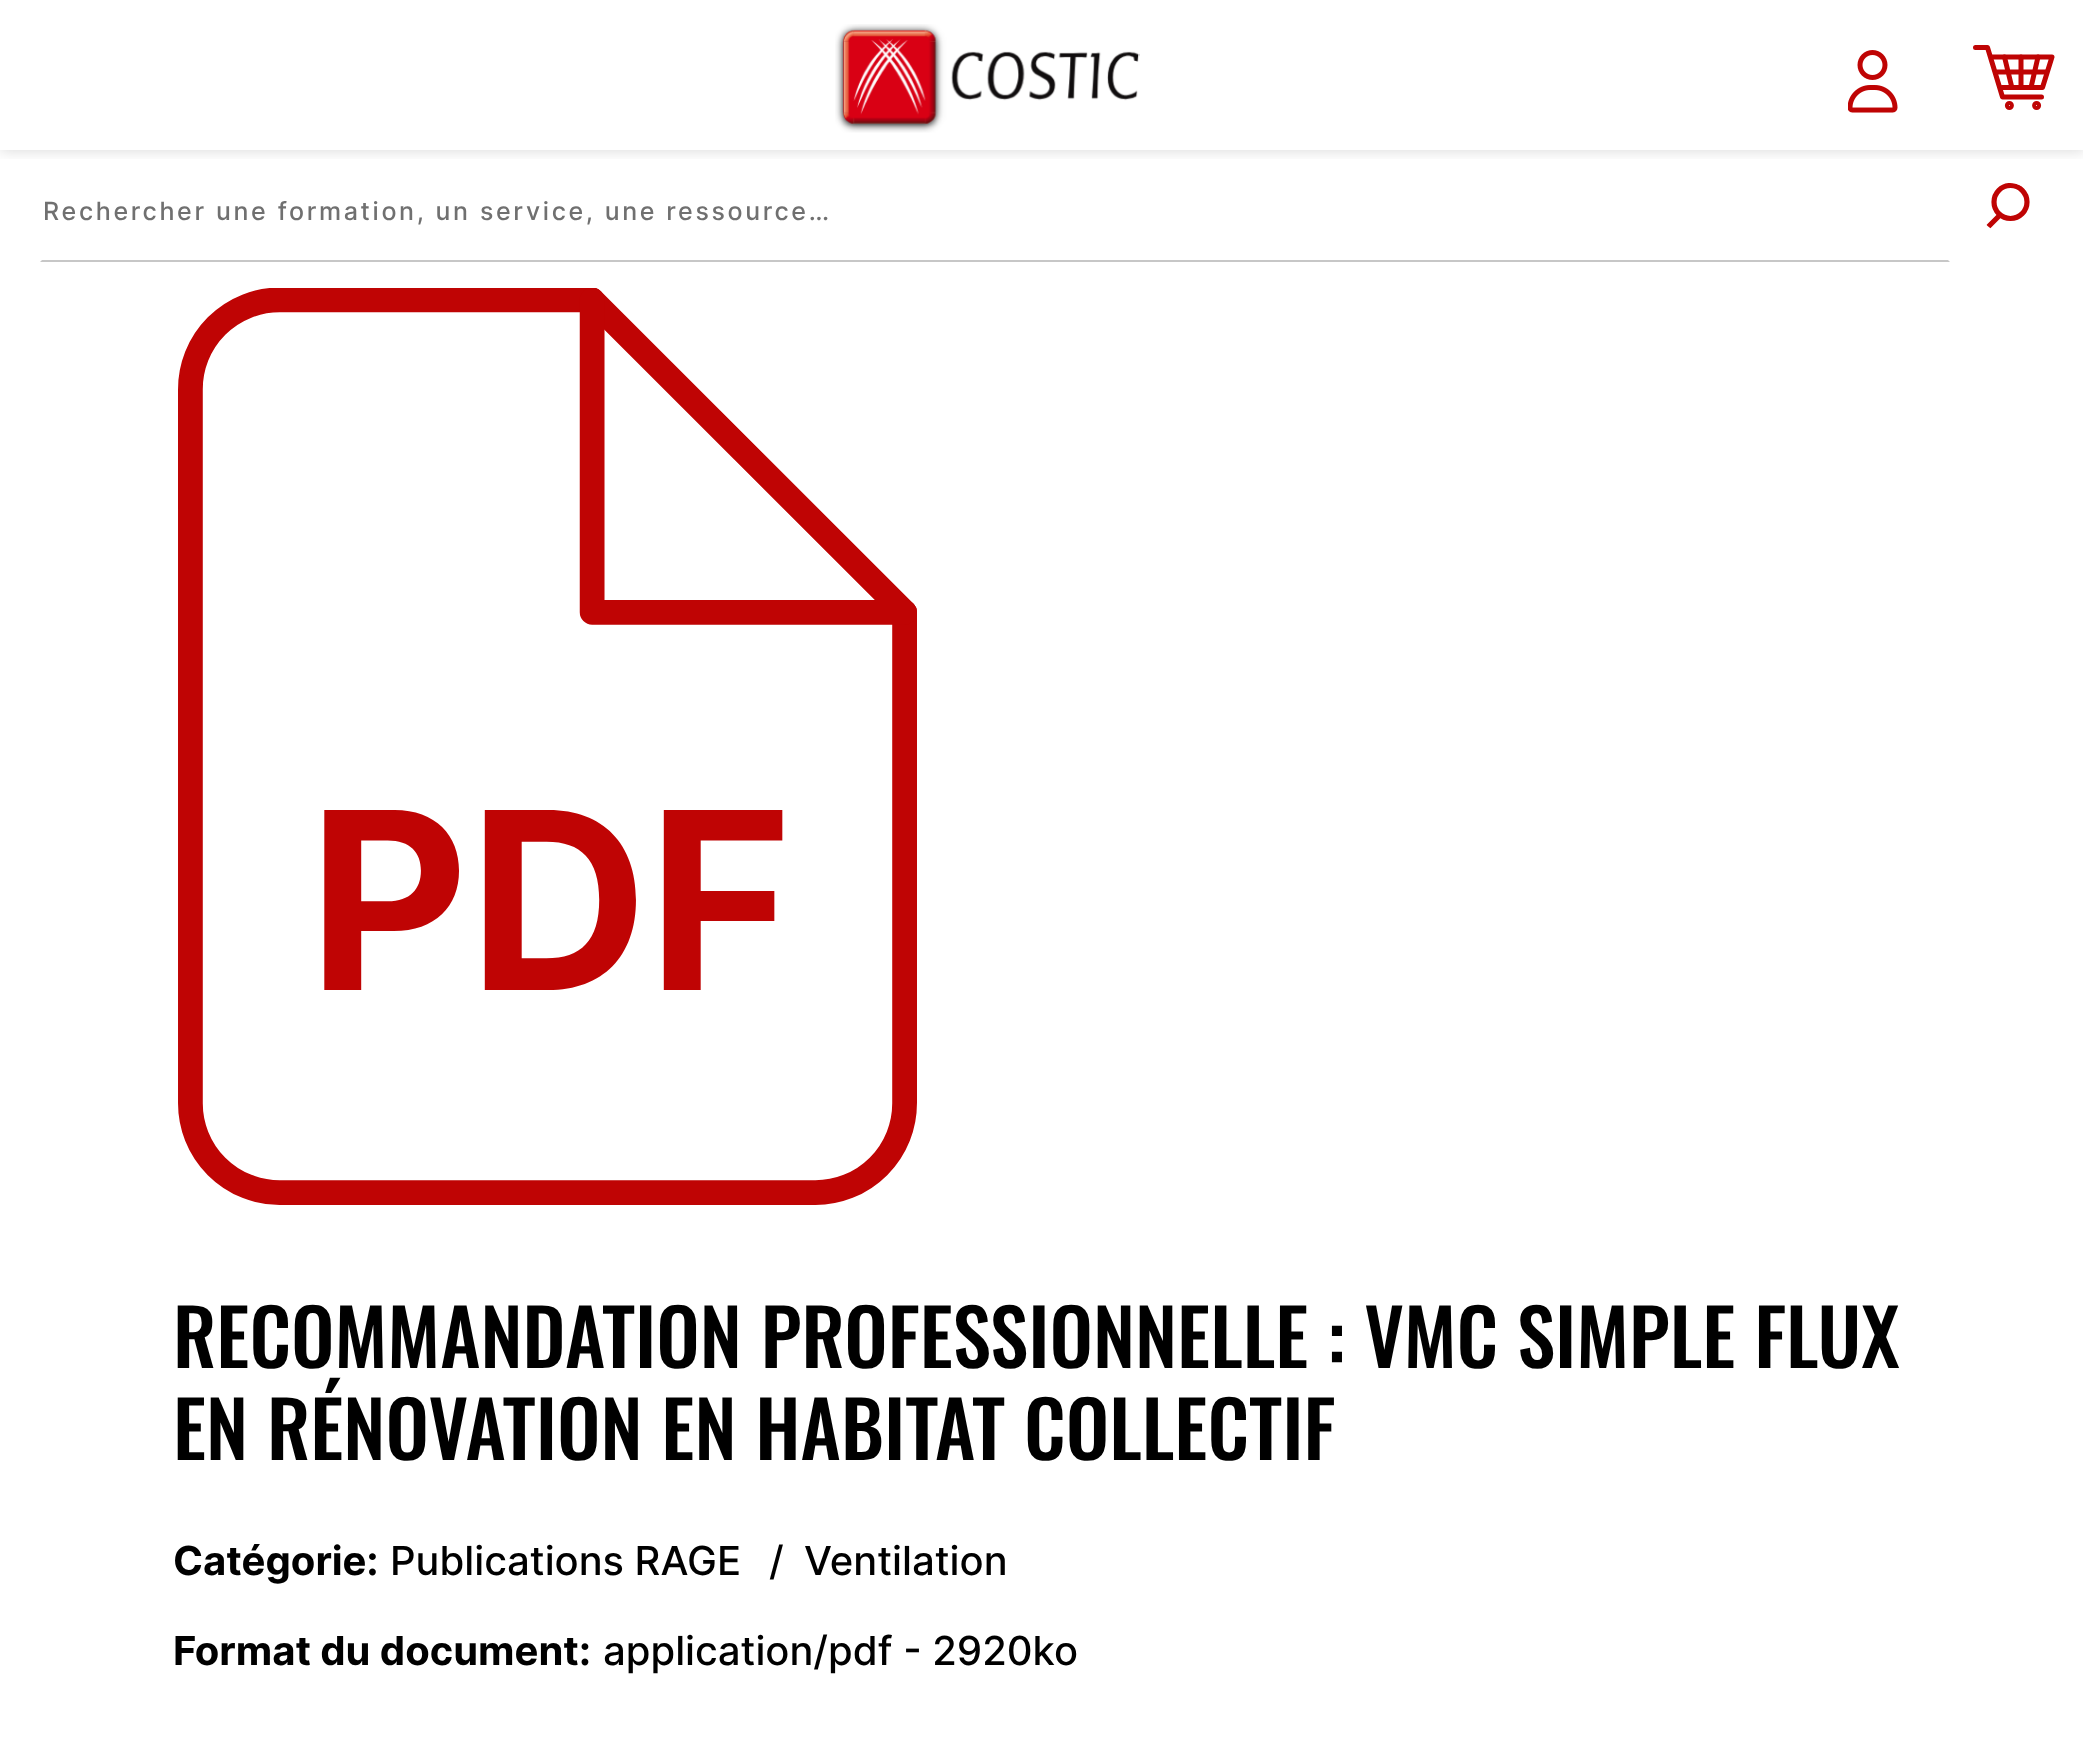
<svg xmlns="http://www.w3.org/2000/svg" xmlns:xlink="http://www.w3.org/1999/xlink" width="2083" height="1739" viewBox="0 0 2083 1739">
<style>
.cls-1{font:500 25px Inter;letter-spacing:2.65px;fill:#707070}
.cls-2{font:500 77.25px Oswald;fill:#000000}
.cls-3{font:bold 40px Inter;fill:#000000}
.cls-4{font:500 40px Inter;fill:#000000}
</style>
<defs>
<clipPath id="clip1"><rect x="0" y="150" width="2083" height="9"/></clipPath>
<clipPath id="clip2"><rect x="1980" y="183" width="55" height="50" rx="25"/></clipPath>
</defs>
<rect width="100%" height="100%" fill="#ffffff"/>
<g clip-path="url(#clip1)">
<rect fill="#000000" fill-opacity="0.16" filter="blur(7.5px)" x="0" y="0" width="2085" height="150"/>
</g>
<image xlink:href="image0.png" x="835" y="24" width="305" height="109"/>
<image xlink:href="image1.png" x="1848" y="50" width="50" height="63"/>
<path fill="none" stroke="#bf0404" stroke-width="5" stroke-linecap="round" stroke-linejoin="round" d="M1975.5 47.5H1987.5L2002.5 97H2041.5"/>
<path fill="none" stroke="#bf0404" stroke-width="5" stroke-linecap="round" stroke-linejoin="round" d="M1992.5 57H2052L2042.5 87.5H2002"/>
<path fill="none" stroke="#bf0404" stroke-width="5" stroke-linecap="round" d="M1997 72H2046M2038 57L2031 87.5M2021 57V86.5M2004.5 57L2011.5 86"/>
<circle fill="none" stroke="#bf0404" stroke-width="5" cx="2009.4" cy="105.5" r="2"/>
<circle fill="none" stroke="#bf0404" stroke-width="5" cx="2036.6" cy="105.5" r="2"/>
<path fill="#c7c7c7" d="M1950 262H40L42 260H1948Z"/>
<g clip-path="url(#clip2)">
<circle fill="none" stroke="#bf0404" stroke-width="5.2" cx="2010.5" cy="202" r="16.5"/>
<path fill="none" stroke="#bf0404" stroke-width="5.2" stroke-linecap="round" d="M1999 216L1983.5 231.5"/>
</g>
<image xlink:href="image2.png" x="178" y="288" width="739" height="917"/>
<text class="cls-1" x="43" y="220">Rechercher une formation, un service, une ressource…</text>
<text class="cls-2"><tspan x="173" y="1368">RECOMMANDATION PROFESSIONNELLE : VMC SIMPLE FLUX</tspan><tspan x="173" y="1460">EN RÉNOVATION EN HABITAT COLLECTIF</tspan></text>
<text class="cls-3" x="173" y="1575">Catégorie:</text>
<text class="cls-4" x="390" y="1575">Publications RAGE</text>
<text class="cls-4" x="769" y="1575">/</text>
<text class="cls-4" x="804" y="1575">Ventilation</text>
<text class="cls-3" x="173" y="1665">Format du document:</text>
<text class="cls-4" x="603" y="1665">application/pdf - 2920ko</text>
</svg>
